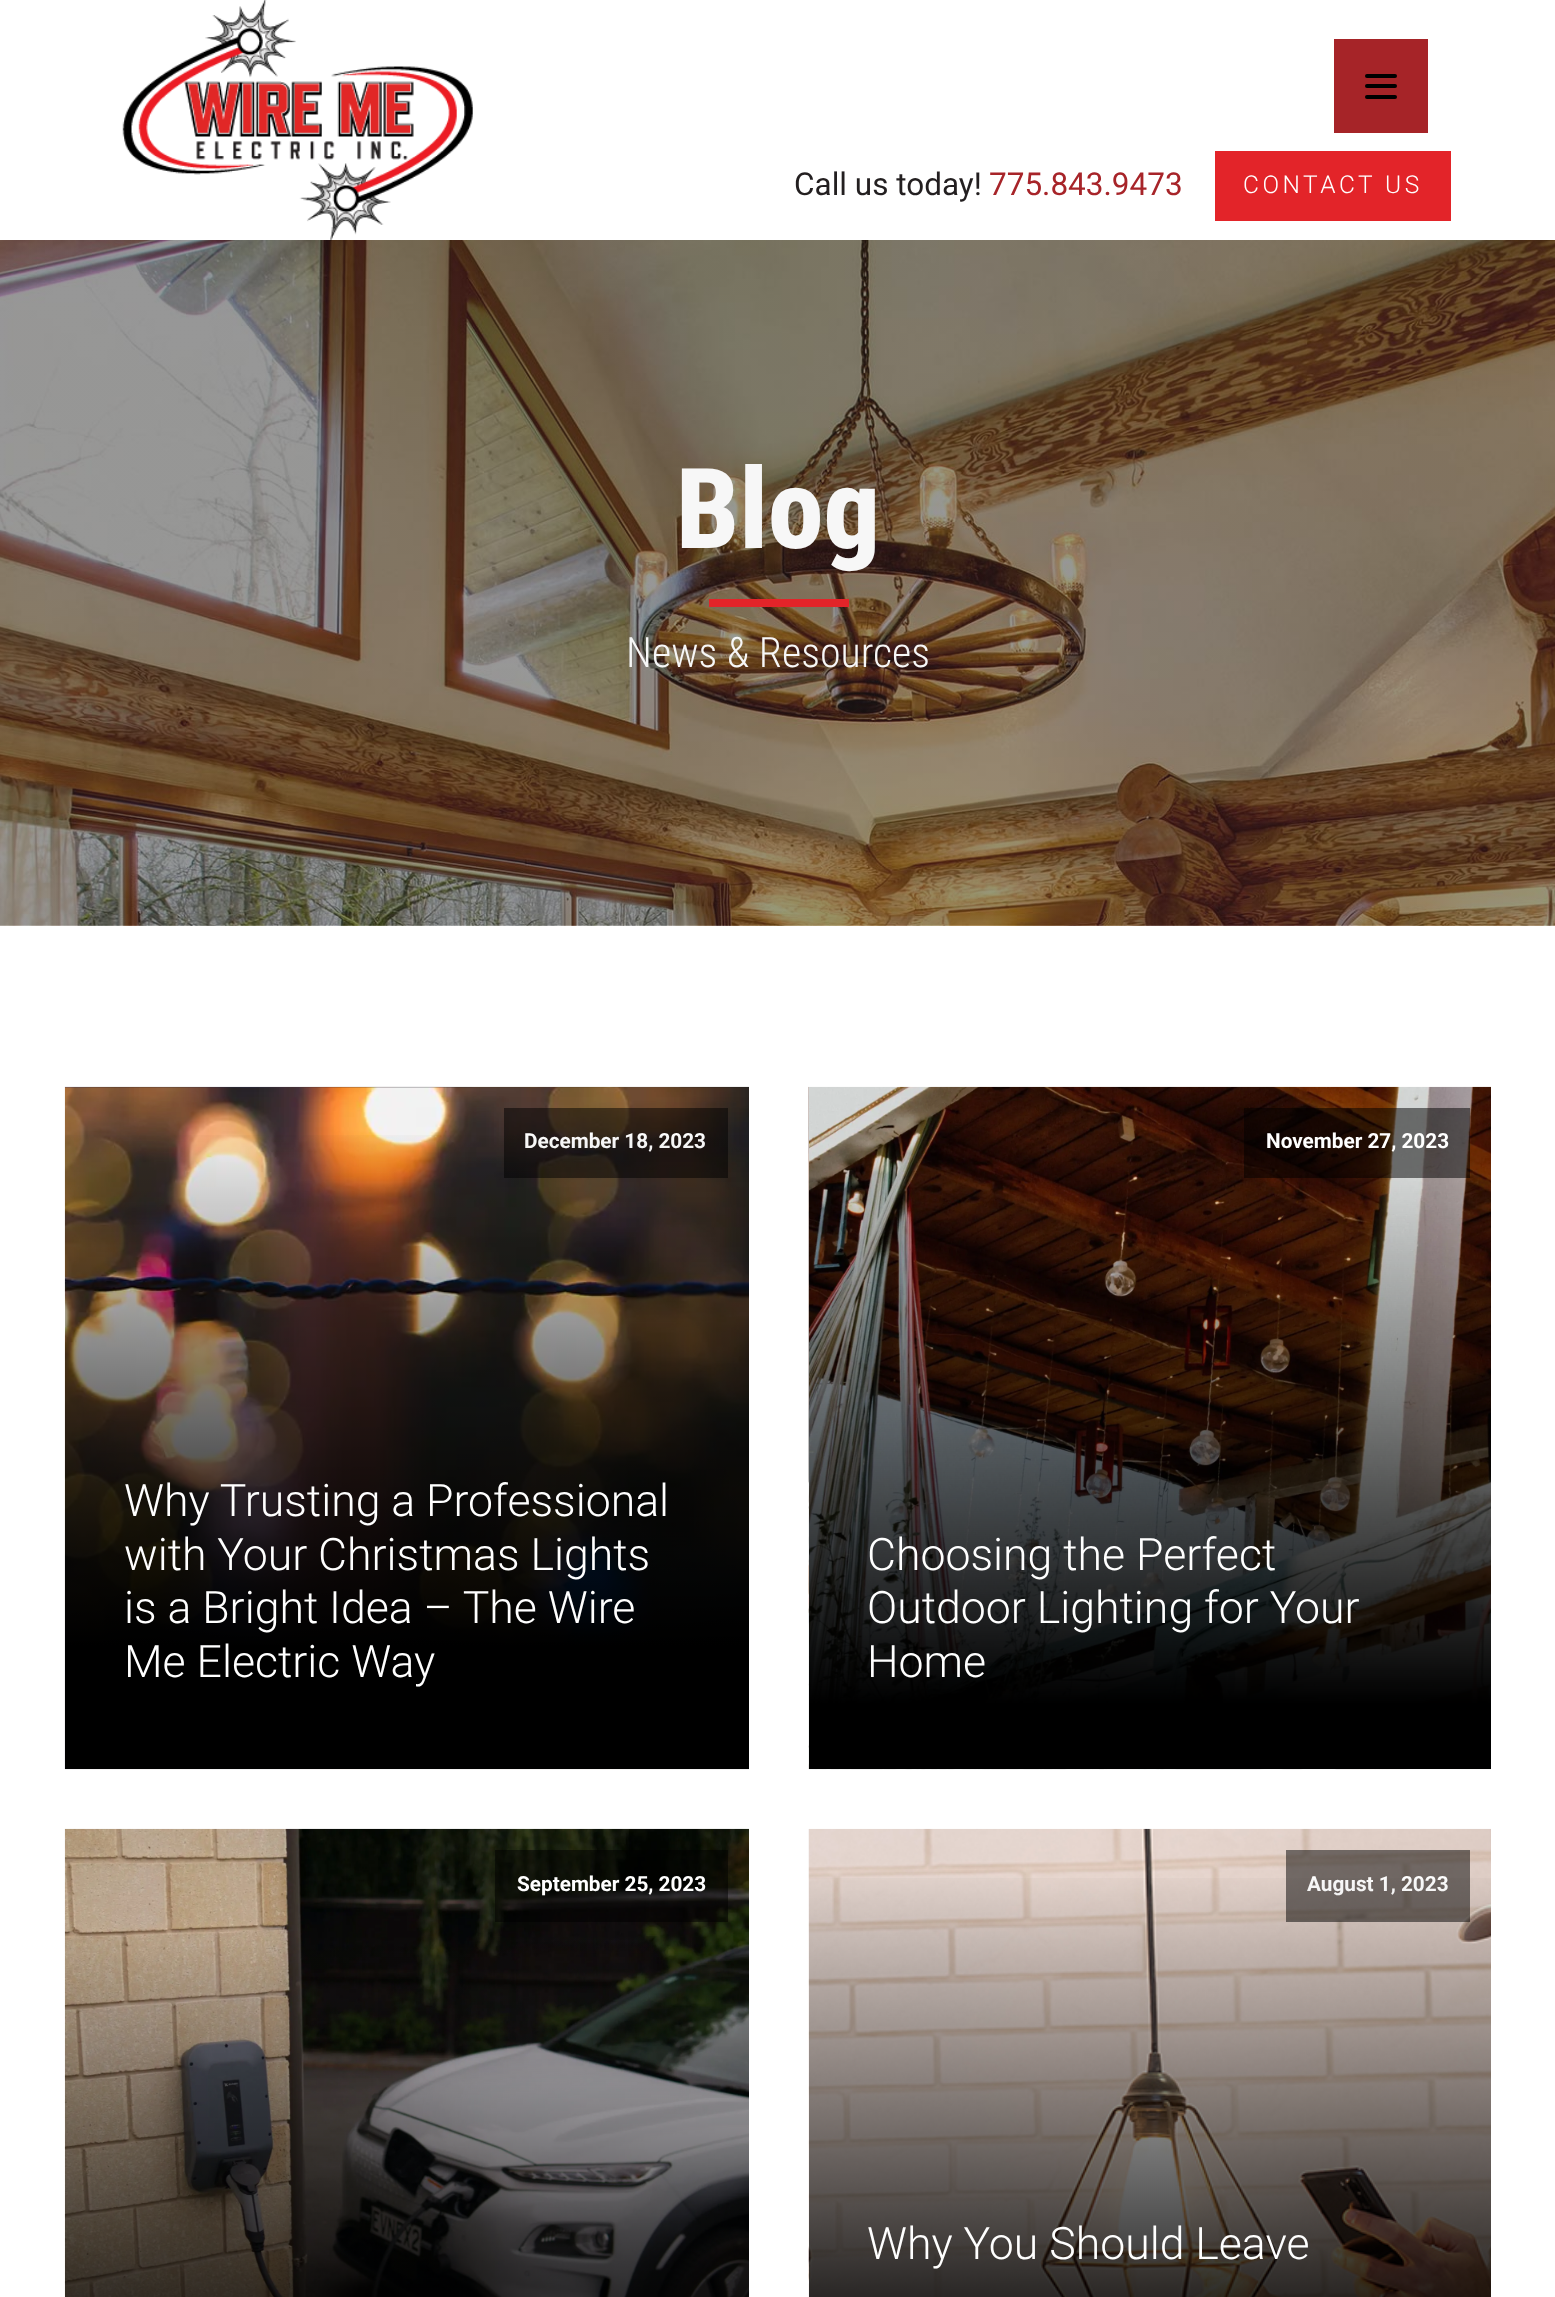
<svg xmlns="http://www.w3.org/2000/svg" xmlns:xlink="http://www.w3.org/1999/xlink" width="1555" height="2297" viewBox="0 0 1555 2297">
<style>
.cls-1{font:31.5px Roboto;fill:#231f20}
.cls-2{font:31.5px Roboto;fill:#a72429}
.cls-3{font:300 24.5px Roboto;letter-spacing:3.5px;fill:#ffffff}
.cls-4{font:800 112px Roboto Condensed;fill:#f7f7f7}
.cls-5{font:300 42px Roboto Condensed;fill:#f7f7f7}
.cls-6{font:bold 20.75px Roboto;fill:#ffffff}
.cls-7{font:300 44.6px Roboto;fill:#ffffff}
</style>
<defs>
<linearGradient id="g1" gradientUnits="userSpaceOnUse" x1="407" y1="1920" x2="407" y2="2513"><stop offset="0" stop-color="#000000" stop-opacity="0"/><stop offset="0.88" stop-color="#000000"/></linearGradient>
<linearGradient id="g2" gradientUnits="userSpaceOnUse" x1="407" y1="1124" x2="407" y2="1769"><stop offset="0" stop-color="#000000" stop-opacity="0"/><stop offset="0.81" stop-color="#000000"/></linearGradient>
<linearGradient id="g3" gradientUnits="userSpaceOnUse" x1="1150" y1="1867" x2="1150" y2="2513"><stop offset="0" stop-color="#000000" stop-opacity="0"/><stop offset="0.81" stop-color="#000000"/></linearGradient>
</defs>
<rect width="100%" height="100%" fill="#ffffff"/>
<image xlink:href="image1.png" x="0" y="240" width="1555" height="686"/>
<image xlink:href="image0.png" x="122" y="0" width="351" height="241"/>
<rect fill="#a62428" x="1334" y="39" width="94" height="94"/>
<rect fill="#000000" x="1365" y="74" width="32" height="4" rx="2"/>
<rect fill="#000000" x="1365" y="84" width="32" height="4" rx="2"/>
<rect fill="#000000" x="1365" y="95" width="32" height="4" rx="2"/>
<rect fill="#e32429" x="1215" y="151" width="236" height="70"/>
<rect fill="#e32429" x="709" y="599" width="140" height="8"/>
<image xlink:href="image2.png" x="64" y="1086" width="685" height="684"/>
<rect fill="#000000" fill-opacity="0.5" x="504" y="1108" width="224" height="70"/>
<image xlink:href="image3.png" x="808" y="1086" width="683" height="684"/>
<rect fill="#000000" fill-opacity="0.5" x="1244" y="1108" width="226" height="70"/>
<image xlink:href="image4.png" x="64" y="1828" width="685" height="469"/>
<rect fill="#000000" fill-opacity="0.5" x="495" y="1850" width="233" height="72"/>
<rect fill="url(#g1)" x="65" y="1931" width="684" height="366"/>
<image xlink:href="image5.png" x="808" y="1828" width="683" height="469"/>
<rect fill="#000000" fill-opacity="0.5" x="1286" y="1850" width="184" height="72"/>
<text class="cls-1" x="794" y="195">Call us today!</text>
<text class="cls-2" x="989" y="195">775.843.9473</text>
<text class="cls-3" x="1243" y="193">CONTACT US</text>
<text class="cls-4" x="676" y="548">Blog</text>
<text class="cls-5" x="626" y="667">News &amp; Resources</text>
<text class="cls-6" x="524" y="1148">December 18, 2023</text>
<rect fill="url(#g2)" x="65" y="1135" width="684" height="634"/>
<text class="cls-7"><tspan x="124" y="1516">Why Trusting a Professional</tspan><tspan x="124" y="1570">with Your Christmas Lights</tspan><tspan x="124" y="1623">is a Bright Idea – The Wire</tspan><tspan x="124" y="1677">Me Electric Way</tspan></text>
<text class="cls-6" x="1266" y="1148">November 27, 2023</text>
<text class="cls-7"><tspan x="867" y="1570">Choosing the Perfect</tspan><tspan x="867" y="1623">Outdoor Lighting for Your</tspan><tspan x="867" y="1677">Home</tspan></text>
<text class="cls-6" x="517" y="1891">September 25, 2023</text>
<text class="cls-6" x="1307" y="1891">August 1, 2023</text>
<rect fill="url(#g3)" x="809" y="1878" width="682" height="419"/>
<text class="cls-7" x="867" y="2259">Why You Should Leave</text>
</svg>
